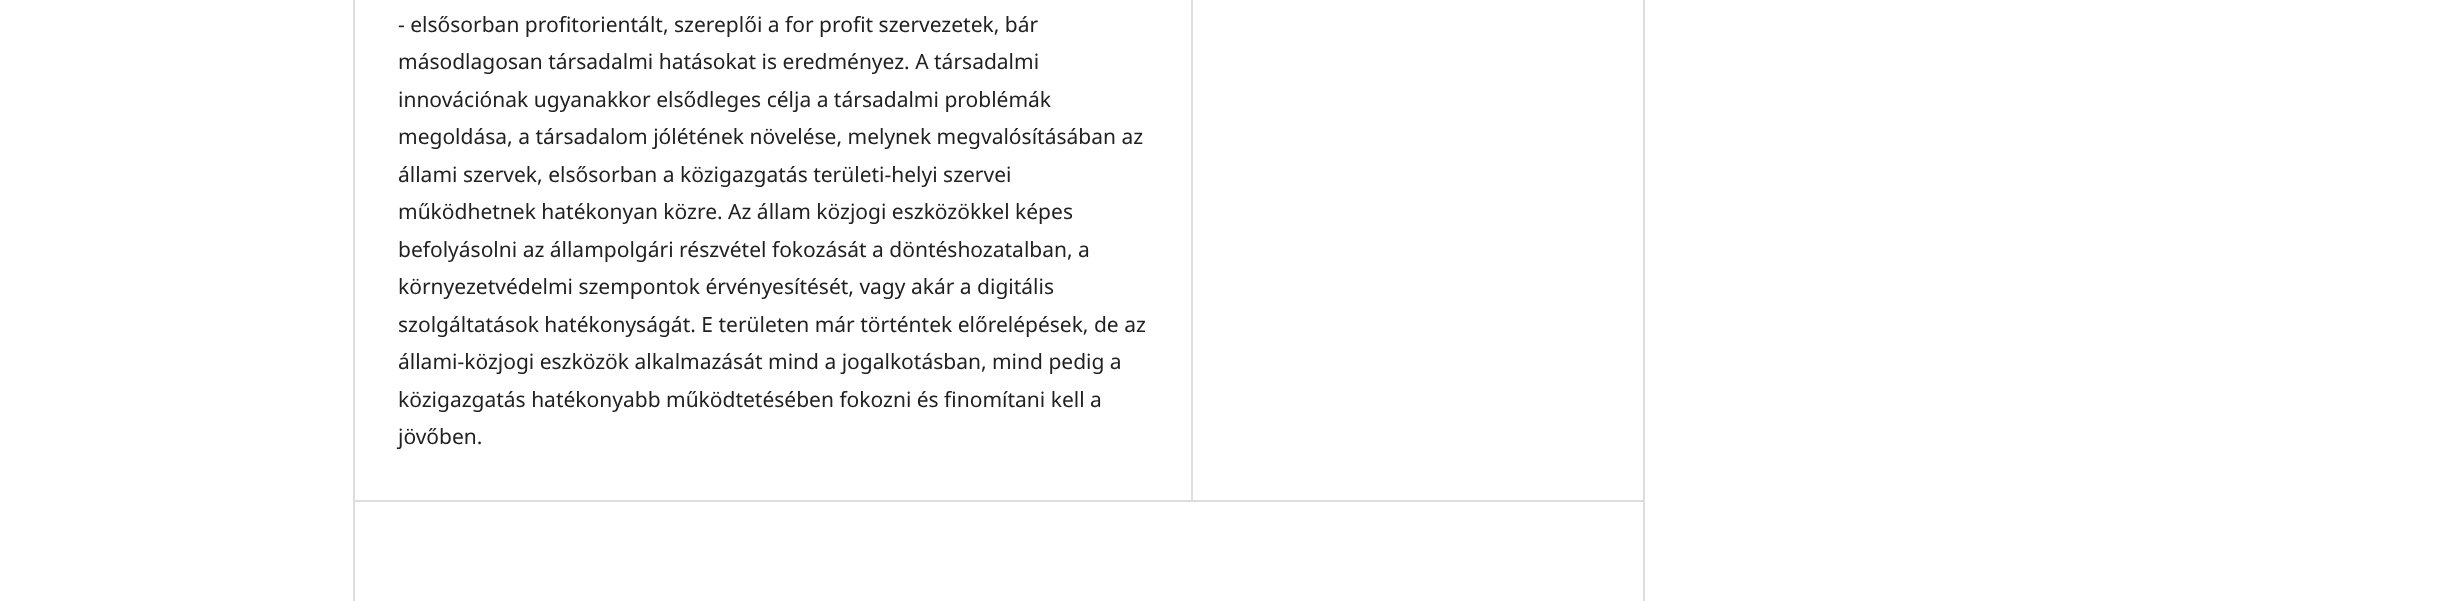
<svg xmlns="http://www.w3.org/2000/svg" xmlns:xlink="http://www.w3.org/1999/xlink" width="2445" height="601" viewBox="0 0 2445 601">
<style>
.cls-1{font:21px Noto Sans;fill:#212121}
</style>
<rect width="100%" height="100%" fill="#ffffff"/>
<rect fill="#dddddd" x="353" y="500" width="1290" height="2"/>
<rect fill="#dddddd" x="353" y="0" width="2" height="601"/>
<rect fill="#dddddd" x="1191" y="0" width="2" height="500"/>
<rect fill="#dddddd" x="1643" y="0" width="2" height="601"/>
<text class="cls-1"><tspan x="398" y="32">- elsősorban profitorientált, szereplői a for profit szervezetek, bár</tspan><tspan x="398" y="69">másodlagosan társadalmi hatásokat is eredményez. A társadalmi</tspan><tspan x="398" y="107">innovációnak ugyanakkor elsődleges célja a társadalmi problémák</tspan><tspan x="398" y="144">megoldása, a társadalom jólétének növelése, melynek megvalósításában az</tspan><tspan x="398" y="182">állami szervek, elsősorban a közigazgatás területi-helyi szervei</tspan><tspan x="398" y="219">működhetnek hatékonyan közre. Az állam közjogi eszközökkel képes</tspan><tspan x="398" y="257">befolyásolni az állampolgári részvétel fokozását a döntéshozatalban, a</tspan><tspan x="398" y="294">környezetvédelmi szempontok érvényesítését, vagy akár a digitális</tspan><tspan x="398" y="332">szolgáltatások hatékonyságát. E területen már történtek előrelépések, de az</tspan><tspan x="398" y="369">állami-közjogi eszközök alkalmazását mind a jogalkotásban, mind pedig a</tspan><tspan x="398" y="407">közigazgatás hatékonyabb működtetésében fokozni és finomítani kell a</tspan><tspan x="398" y="444">jövőben.</tspan></text>
</svg>
